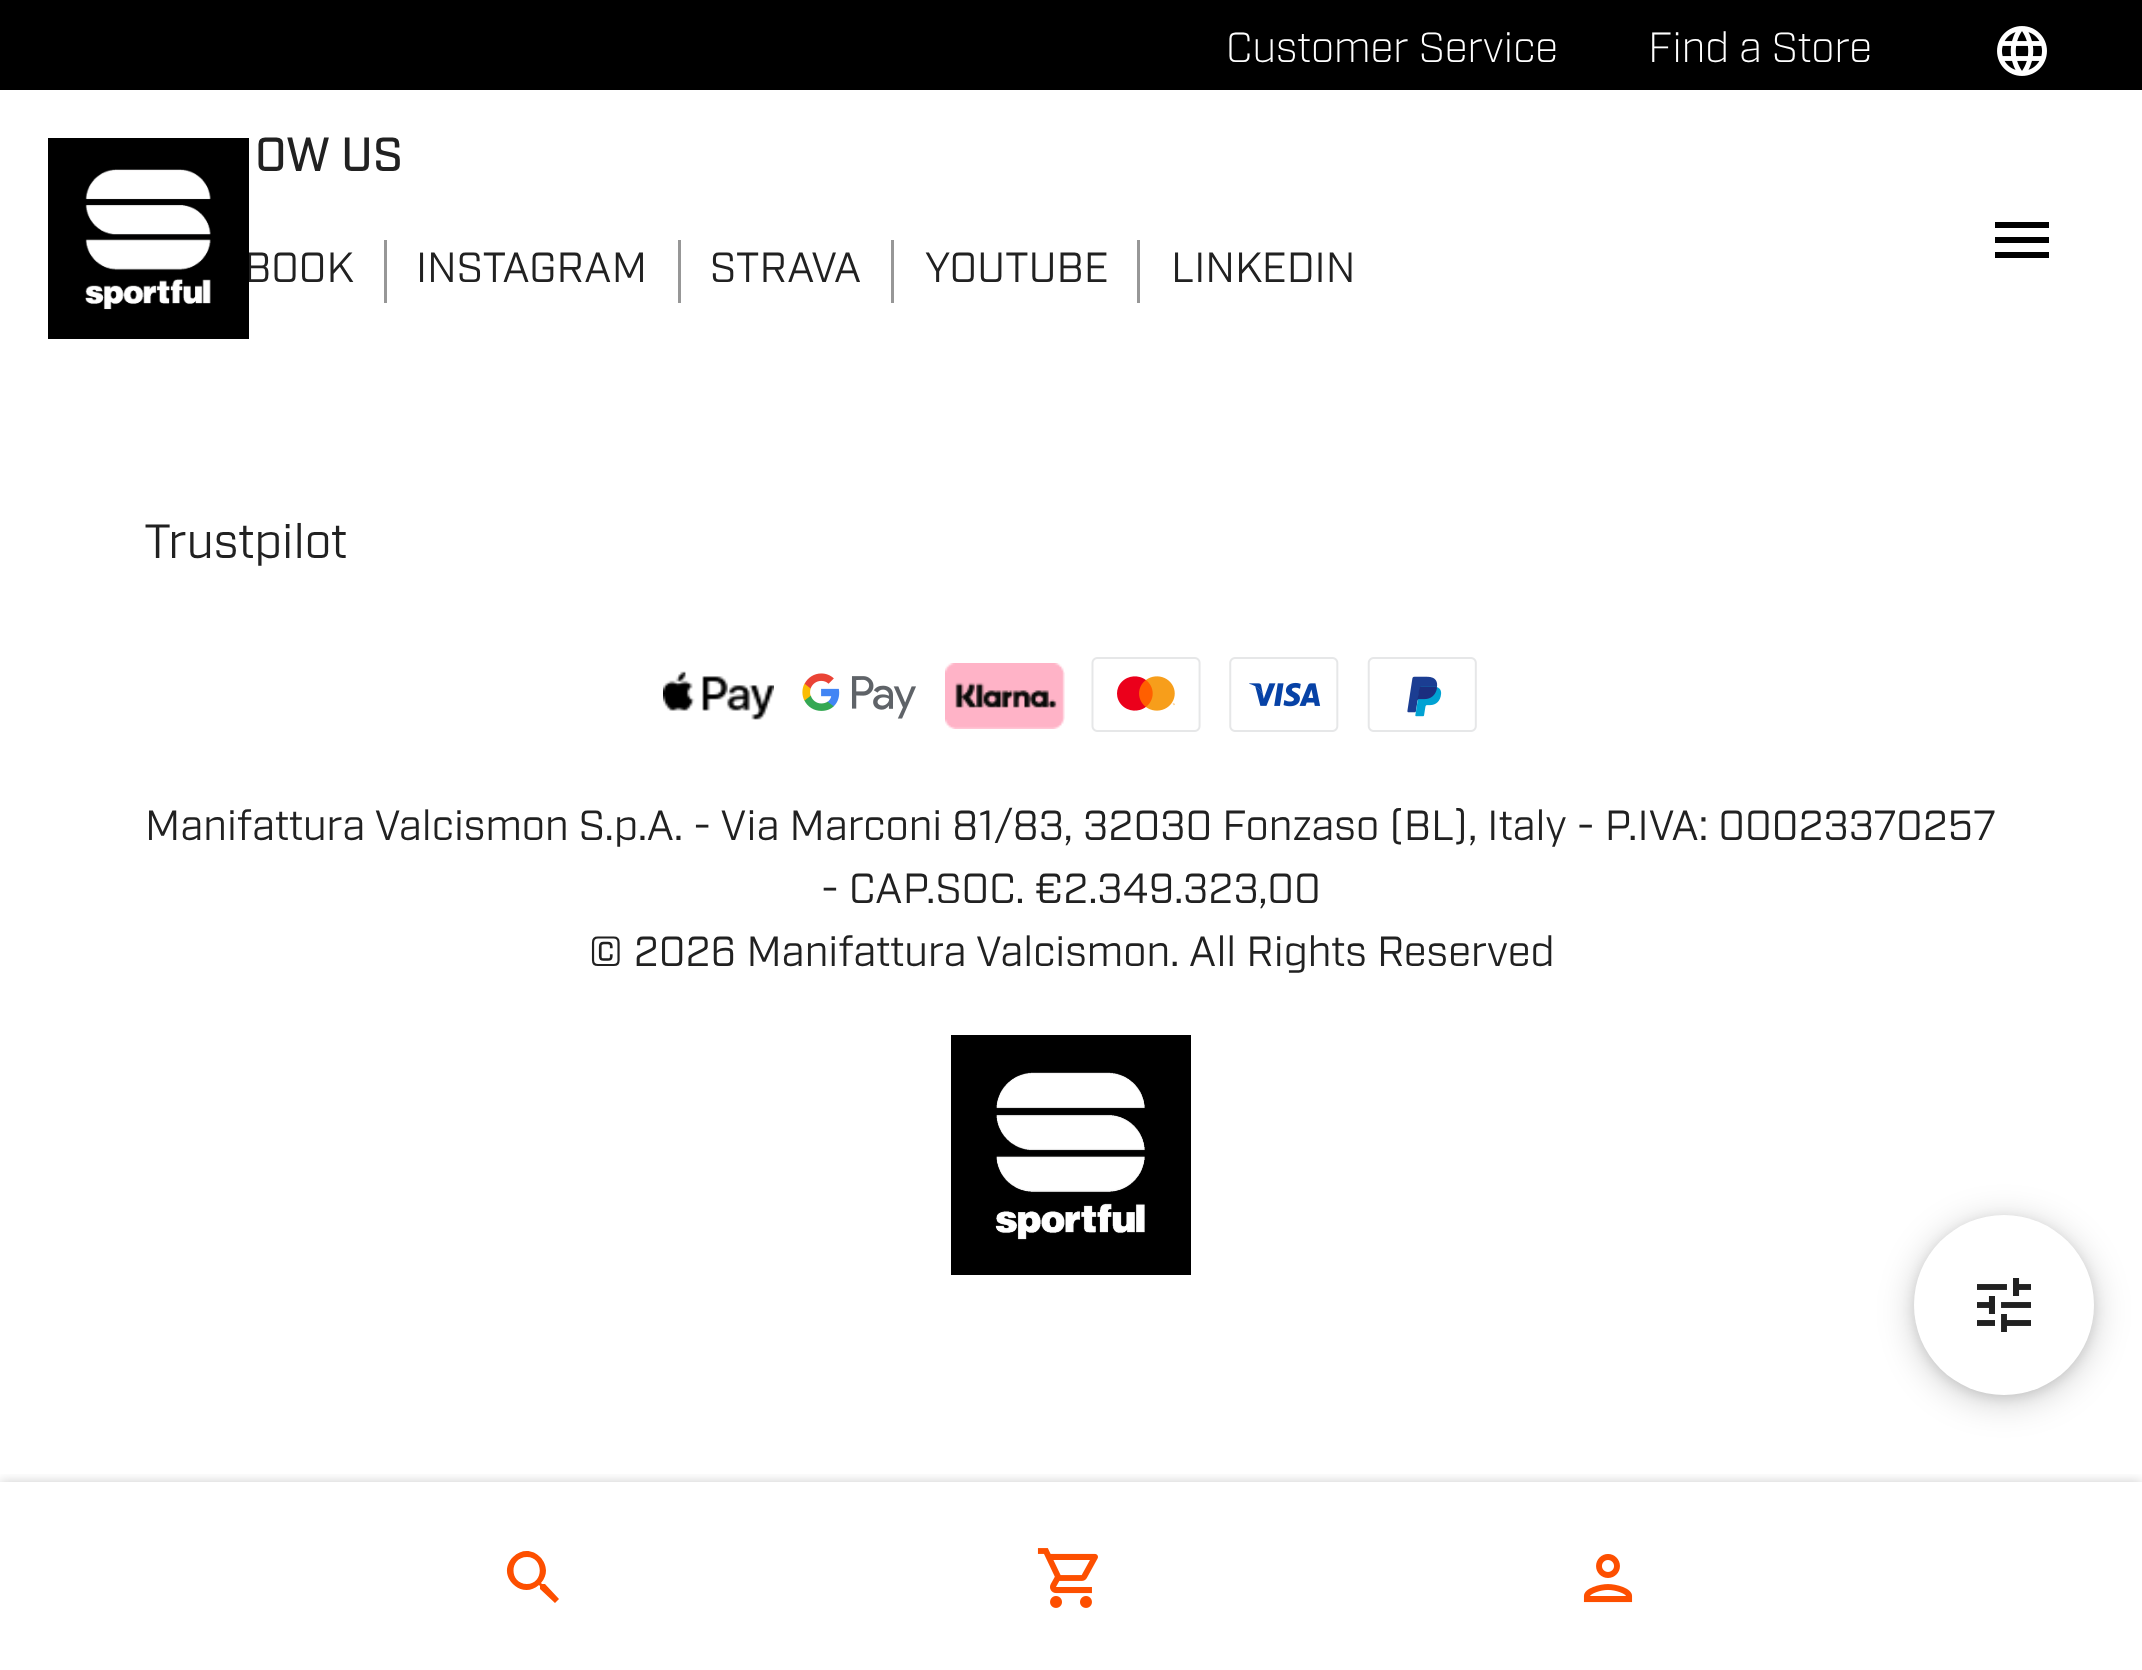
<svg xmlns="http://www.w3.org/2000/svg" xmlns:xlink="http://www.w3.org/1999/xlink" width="2142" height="1670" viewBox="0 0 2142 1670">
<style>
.cls-1{font:300 42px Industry;fill:#ffffff}
.cls-2{font:500 48px Industry;fill:#212121}
.cls-3{font:42px Industry;fill:#212121}
.cls-4{font:48px Industry;fill:#212121}
</style>
<defs>
<clipPath id="clip1"><rect x="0" y="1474" width="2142" height="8"/></clipPath>
</defs>
<rect width="100%" height="100%" fill="#ffffff"/>
<rect fill="#000000" x="0" y="0" width="2142" height="90"/>
<image xlink:href="image0.png" x="1997" y="26" width="50" height="50"/>
<path fill="#000000" d="M1995 258H2049V252H1995ZM1995 243H2049V237H1995ZM1995 222V228H2049V222Z"/>
<rect fill="#979797" x="384" y="240" width="3" height="63"/>
<rect fill="#979797" x="678" y="240" width="3" height="63"/>
<rect fill="#979797" x="891" y="240" width="3" height="63"/>
<rect fill="#979797" x="1137" y="240" width="3" height="63"/>
<image xlink:href="image2.png" x="663" y="671" width="111" height="49"/>
<image xlink:href="image3.png" x="802" y="673" width="114" height="46"/>
<image xlink:href="image4.png" x="945" y="663" width="120" height="66"/>
<image xlink:href="image5.png" x="1091" y="657" width="110" height="75"/>
<image xlink:href="image6.png" x="1229" y="657" width="110" height="75"/>
<image xlink:href="image7.png" x="1367" y="657" width="110" height="75"/>
<image xlink:href="image8.png" x="951" y="1035" width="240" height="240"/>
<rect fill="#000000" fill-opacity="0.2" filter="blur(18px)" x="1914" y="1221" width="180" height="180" rx="90"/>
<rect fill="#000000" fill-opacity="0.1" filter="blur(6px)" x="1914" y="1218" width="180" height="180" rx="90"/>
<circle fill="#ffffff" cx="2004" cy="1305" r="90"/>
<image xlink:href="image9.png" x="1977" y="1278" width="54" height="54"/>
<g clip-path="url(#clip1)">
<rect fill="#000000" fill-opacity="0.2" filter="blur(6px)" x="0" y="1482" width="2142" height="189"/>
</g>
<path fill="#fd4f00" d="M545 1584H542L541 1583C557 1565 531 1539 513 1557C495 1575 521 1601 539 1585L540 1586V1589L555 1603L559 1599ZM527 1584C509 1584 509 1557 527 1557C544 1557 544 1584 527 1584Z"/>
<image xlink:href="image10.png" x="1037" y="1548" width="61" height="60"/>
<image xlink:href="image11.png" x="1583" y="1554" width="50" height="49"/>
<text class="cls-1" x="1226" y="62">Customer Service</text>
<text class="cls-1" x="1648" y="62">Find a Store</text>
<text class="cls-2" x="255" y="171">OW US</text>
<text class="cls-3" x="244" y="282">BOOK</text>
<image xlink:href="image1.png" x="48" y="138" width="201" height="201"/>
<text class="cls-3" x="416" y="282">INSTAGRAM</text>
<text class="cls-3" x="710" y="282">STRAVA</text>
<text class="cls-3" x="925" y="282">YOUTUBE</text>
<text class="cls-3" x="1171" y="282">LINKEDIN</text>
<text class="cls-4" x="144" y="558">Trustpilot</text>
<text class="cls-3" x="145" y="840">Manifattura Valcismon S.p.A. - Via Marconi 81/83, 32030 Fonzaso (BL), Italy - P.IVA: 00023370257</text>
<text class="cls-3" x="821" y="903">- CAP.SOC. €2.349.323,00</text>
<text class="cls-3" x="588" y="966">© 2026 Manifattura Valcismon. All Rights Reserved</text>
</svg>
